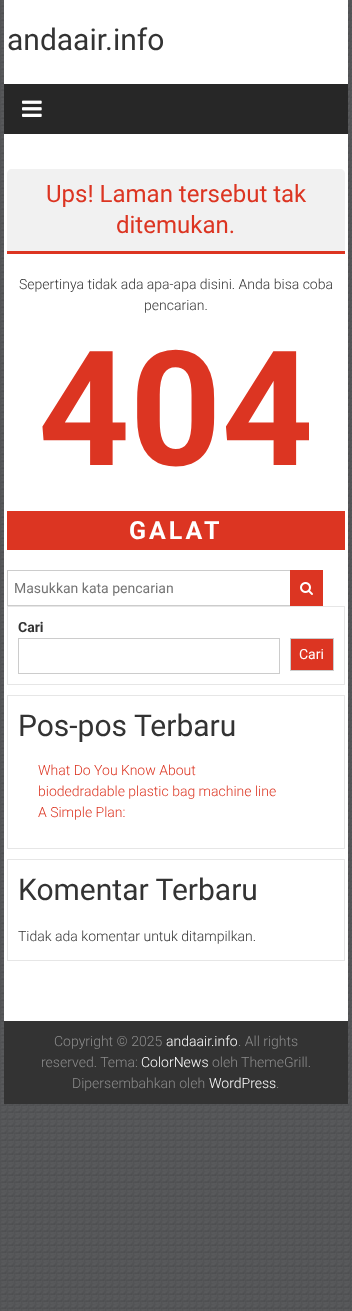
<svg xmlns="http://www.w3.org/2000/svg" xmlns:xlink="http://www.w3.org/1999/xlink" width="352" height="1311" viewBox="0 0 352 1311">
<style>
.cls-1{font:30px Roboto;fill:#333333}
.cls-2{font:24px Roboto;fill:#dc3522}
.cls-3{font:300 14px Roboto;fill:#333333}
.cls-4{font:bold 160px Roboto;fill:#dc3522}
.cls-5{font:bold 25px Roboto;letter-spacing:3px;fill:#ffffff}
.cls-6{font:14px Roboto;fill:#757575}
.cls-7{font:bold 14px Roboto;fill:#333333}
.cls-8{font:14px Roboto;fill:#ffffff}
.cls-9{font:300 14px Roboto;fill:#dc3522}
.cls-10{font:300 14px Roboto;fill:#8c8c8c}
.cls-11{font:300 14px Roboto;fill:#ffffff}
</style>
<rect width="100%" height="100%" fill="#ffffff"/>
<image xlink:href="image0.png" x="0" y="0" width="352" height="1311"/>
<rect fill="#ffffff" x="4" y="0" width="344" height="1021"/>
<rect fill="#272727" x="4" y="84" width="344" height="50"/>
<image xlink:href="image1.png" x="22" y="100" width="20" height="17"/>
<path fill="#f1f1f1" d="M12 169H340C343 169 345 171 345 174V254H7V174C7 171 9 169 12 169Z"/>
<rect fill="#dc3522" x="7" y="251" width="338" height="3"/>
<rect fill="#dc3522" x="7" y="511" width="338" height="39"/>
<rect fill="none" stroke="#cccccc" x="7.5" y="570.5" width="283" height="35"/>
<rect fill="#dc3522" x="290" y="570" width="33" height="36"/>
<image xlink:href="image2.png" x="300" y="582" width="13" height="13"/>
<rect fill="none" stroke="#e6e6e6" x="7.5" y="606.5" width="337" height="78"/>
<rect fill="none" stroke="#cccccc" x="18.5" y="638.5" width="261" height="35"/>
<rect fill="#dc3522" stroke="#cccccc" x="290.5" y="638.5" width="43" height="32"/>
<rect fill="none" stroke="#e6e6e6" x="7.5" y="695.5" width="337" height="153"/>
<rect fill="none" stroke="#e6e6e6" x="7.5" y="859.5" width="337" height="101"/>
<rect fill="#333333" x="4" y="1021" width="344" height="83"/>
<text class="cls-1" x="7" y="50">andaair.info</text>
<text class="cls-2" x="46" y="202">Ups! Laman tersebut tak</text>
<text class="cls-2" x="116" y="233">ditemukan.</text>
<text class="cls-3" x="19" y="289">Sepertinya tidak ada apa-apa disini. Anda bisa coba</text>
<text class="cls-3" x="144" y="310">pencarian.</text>
<text class="cls-4" x="38" y="465">404</text>
<text class="cls-5" x="129" y="539">GALAT</text>
<text class="cls-6" x="14" y="593">Masukkan kata pencarian</text>
<text class="cls-7" x="18" y="632">Cari</text>
<text class="cls-8" x="299" y="659">Cari</text>
<text class="cls-1" x="18" y="736">Pos-pos Terbaru</text>
<text class="cls-9"><tspan x="38" y="775">What Do You Know About</tspan><tspan x="38" y="796">biodedradable plastic bag machine line</tspan><tspan x="38" y="817">A Simple Plan:</tspan></text>
<text class="cls-1" x="18" y="900">Komentar Terbaru</text>
<text class="cls-3" x="18" y="941">Tidak ada komentar untuk ditampilkan.</text>
<text class="cls-10" x="54" y="1046">Copyright © 2025</text>
<text class="cls-11" x="166" y="1046">andaair.info</text>
<text class="cls-10" x="238" y="1046">. All rights</text>
<text class="cls-10" x="41" y="1067">reserved. Tema:</text>
<text class="cls-11" x="141" y="1067">ColorNews</text>
<text class="cls-10" x="212" y="1067">oleh ThemeGrill.</text>
<text class="cls-10" x="72" y="1088">Dipersembahkan oleh</text>
<text class="cls-11" x="209" y="1088">WordPress</text>
<text class="cls-10" x="276" y="1088">.</text>
</svg>
